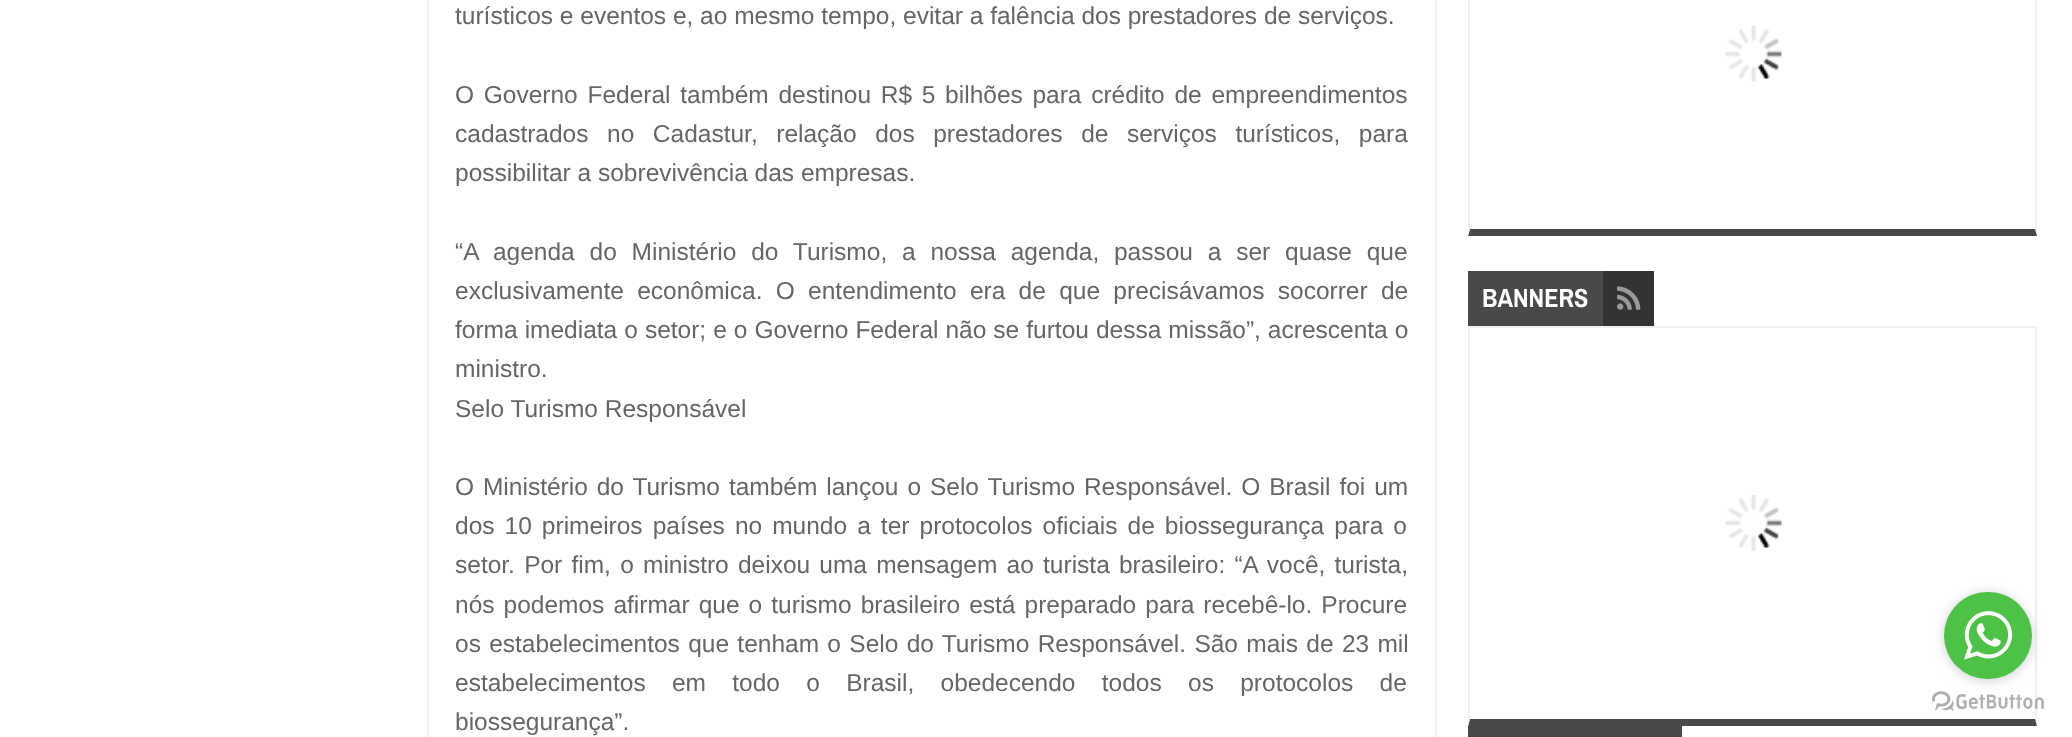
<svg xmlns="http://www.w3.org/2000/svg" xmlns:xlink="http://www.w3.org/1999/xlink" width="2072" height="737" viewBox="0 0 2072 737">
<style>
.cls-1{font:24.5px Liberation Sans;fill:#666666}
.cls-2{font:bold 26.25px Archivo Narrow;fill:#ffffff}
</style>
<rect width="100%" height="100%" fill="#ffffff"/>
<rect fill="none" stroke="#f0f0f0" stroke-width="2" x="428" y="-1" width="1008" height="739"/>
<path fill="#f0f0f0" d="M2037-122V236L2035 229V-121Z"/>
<path fill="#494949" d="M2037 236H1468L1470 229H2035Z"/>
<path fill="#f0f0f0" d="M1468 236V-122L1470-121V229Z"/>
<image xlink:href="image0.png" x="1725" y="26" width="57" height="56"/>
<rect fill="#494949" x="1468" y="271" width="135" height="55"/>
<rect fill="#333333" x="1603" y="271" width="51" height="55"/>
<image xlink:href="image1.png" x="1617" y="286" width="24" height="24"/>
<rect fill="#f0f0f0" x="1468" y="326" width="569" height="2"/>
<path fill="#f0f0f0" d="M2037 326V726L2035 719V327Z"/>
<path fill="#494949" d="M2037 726H1468L1470 719H2035Z"/>
<path fill="#f0f0f0" d="M1468 726V326L1470 327V719Z"/>
<image xlink:href="image2.png" x="1725" y="495" width="57" height="56"/>
<rect fill="#494949" x="1468" y="726" width="214" height="11"/>
<image xlink:href="image4.png" x="1932" y="691" width="112" height="20"/>
<rect fill="#888888" fill-opacity="0.4" filter="blur(6px)" x="1944" y="593" width="88" height="88" rx="44"/>
<rect fill="#4dc247" x="1944" y="592" width="88" height="87" rx="43.5"/>
<image xlink:href="image3.png" x="1964" y="611" width="49" height="49"/>
<text class="cls-1" x="455" y="24">turísticos e eventos e, ao mesmo tempo, evitar a falência dos prestadores de serviços.</text>
<text class="cls-1"><tspan x="455" y="103" word-spacing="2.9">O Governo Federal também destinou R$ 5 bilhões para crédito de empreendimentos</tspan><tspan x="455" y="142" word-spacing="11.75">cadastrados no Cadastur, relação dos prestadores de serviços turísticos, para</tspan><tspan x="455" y="181">possibilitar a sobrevivência das empresas.</tspan></text>
<text class="cls-1"><tspan x="455" y="260" word-spacing="8">“A agenda do Ministério do Turismo, a nossa agenda, passou a ser quase que</tspan><tspan x="455" y="299" word-spacing="6.5">exclusivamente econômica. O entendimento era de que precisávamos socorrer de</tspan><tspan x="455" y="338" word-spacing="0.2">forma imediata o setor; e o Governo Federal não se furtou dessa missão”, acrescenta o</tspan><tspan x="455" y="377">ministro.</tspan><tspan x="455" y="417">Selo Turismo Responsável</tspan></text>
<text class="cls-1"><tspan x="455" y="495" word-spacing="2.1">O Ministério do Turismo também lançou o Selo Turismo Responsável. O Brasil foi um</tspan><tspan x="455" y="534" word-spacing="3.25">dos 10 primeiros países no mundo a ter protocolos oficiais de biossegurança para o</tspan><tspan x="455" y="573" word-spacing="2.4">setor. Por fim, o ministro deixou uma mensagem ao turista brasileiro: “A você, turista,</tspan><tspan x="455" y="613" word-spacing="2.25">nós podemos afirmar que o turismo brasileiro está preparado para recebê-lo. Procure</tspan><tspan x="455" y="652" word-spacing="1.5">os estabelecimentos que tenham o Selo do Turismo Responsável. São mais de 23 mil</tspan><tspan x="455" y="691" word-spacing="19.5">estabelecimentos em todo o Brasil, obedecendo todos os protocolos de</tspan><tspan x="455" y="730">biossegurança”.</tspan></text>
<text class="cls-2" x="1482" y="307">BANNERS</text>
</svg>
